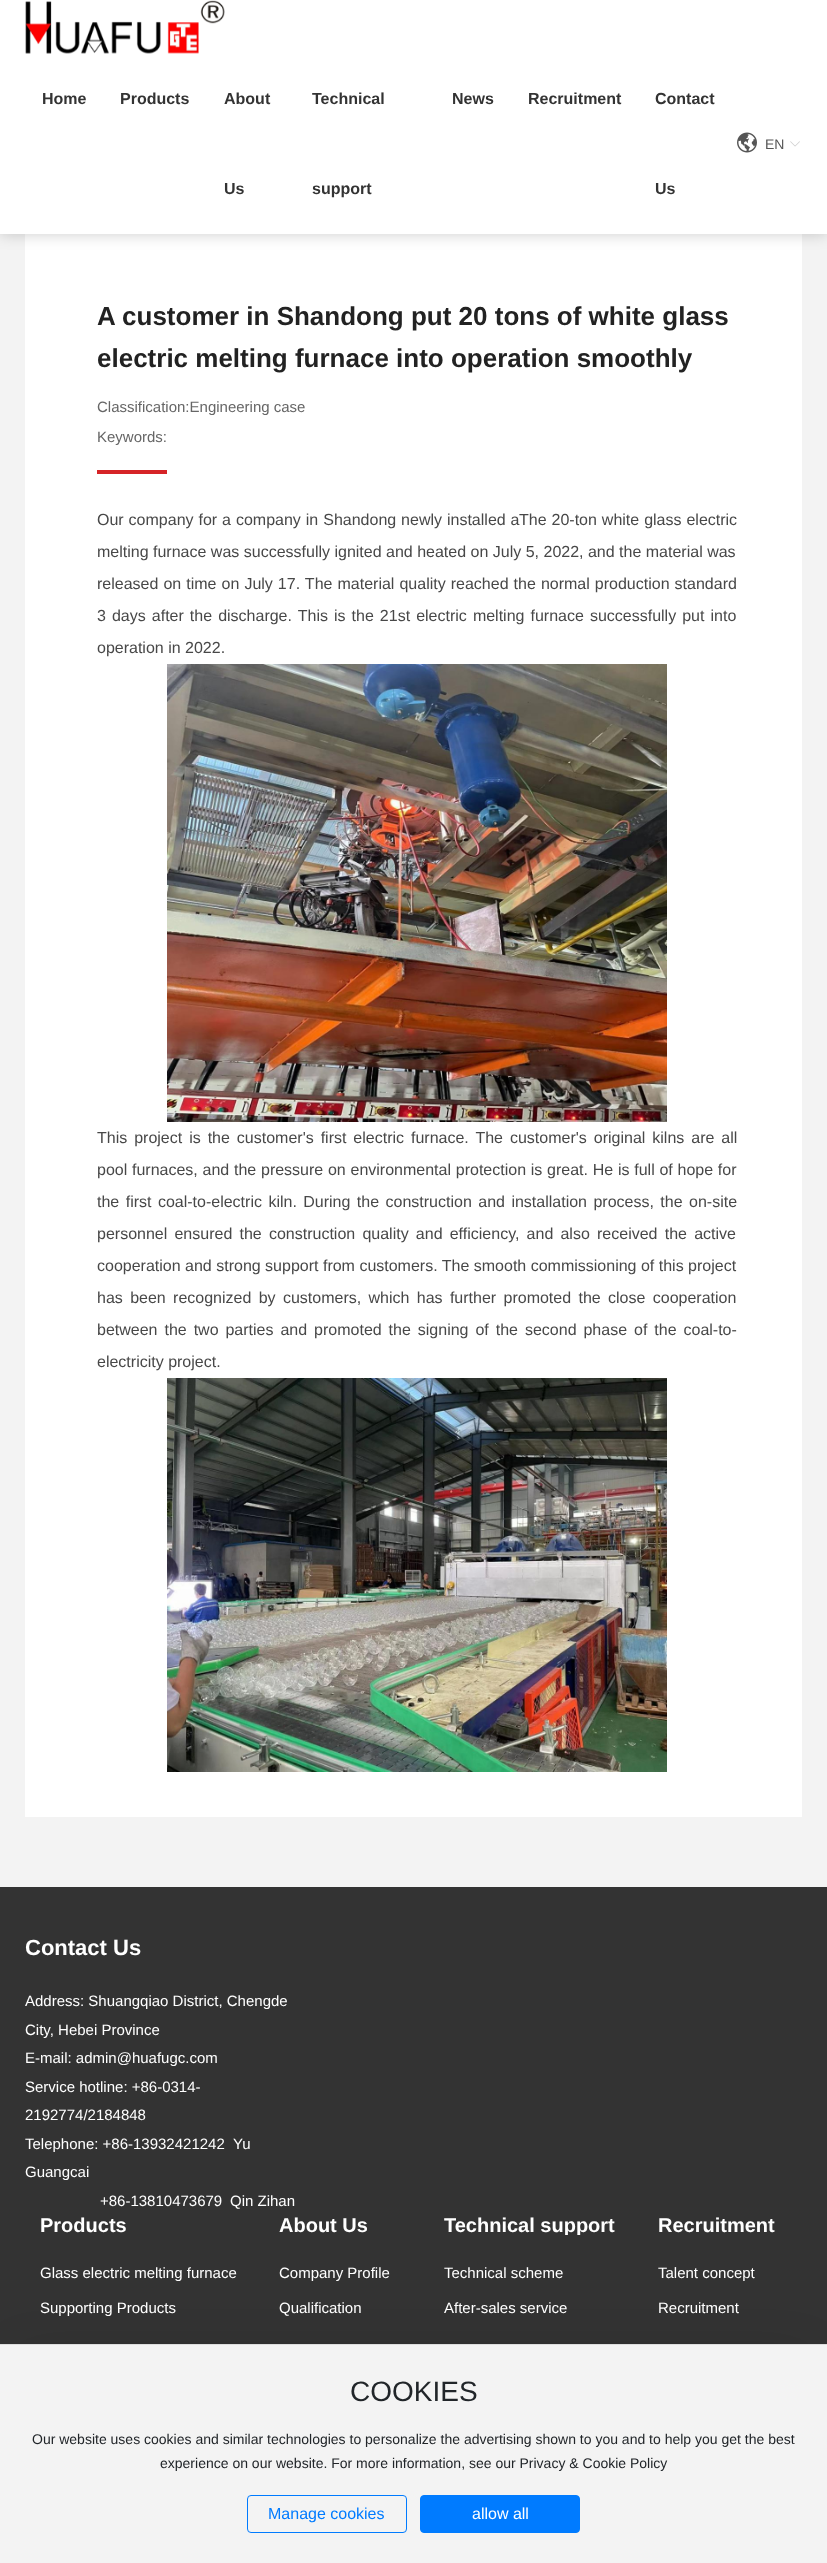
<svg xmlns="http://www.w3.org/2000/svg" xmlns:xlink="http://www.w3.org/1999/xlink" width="827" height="2563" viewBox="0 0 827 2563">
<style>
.cls-1{font:bold 16px Liberation Sans;fill:#333333}
.cls-2{font:14px Liberation Sans;fill:#555555}
.cls-3{font:bold 26px Liberation Sans;fill:#222222}
.cls-4{font:15px Liberation Sans;fill:#666666}
.cls-5{font:16px Liberation Sans;fill:#484848}
.cls-6{font:bold 22px Liberation Sans;fill:#ffffff}
.cls-7{font:15px Liberation Sans;fill:#ffffff}
.cls-8{font:bold 20px Liberation Sans;fill:#ffffff}
.cls-9{font:28px Liberation Sans;fill:#212529}
.cls-10{font:14px Liberation Sans;fill:#212529}
.cls-11{font:16px Liberation Sans;fill:#007bff}
.cls-12{font:16px Liberation Sans;fill:#ffffff}
</style>
<defs>
<clipPath id="clip1"><rect x="444" y="2215" width="184" height="20"/></clipPath>
</defs>
<rect width="100%" height="100%" fill="#f3f3f3"/>
<rect fill="#ffffff" x="25" y="234" width="777" height="1583"/>
<rect fill="#000000" fill-opacity="0.2" filter="blur(7.5px)" x="0" y="0" width="827" height="234"/>
<rect fill="#ffffff" x="0" y="0" width="827" height="234"/>
<image xlink:href="image0.png" x="25" y="0" width="200" height="54"/>
<image xlink:href="image1.png" x="737" y="132" width="20" height="21"/>
<image xlink:href="image2.png" x="790" y="141" width="10" height="6"/>
<rect fill="#d62427" x="97" y="470" width="70" height="4"/>
<image xlink:href="image3.png" x="167" y="664" width="500" height="458"/>
<image xlink:href="image4.png" x="167" y="1378" width="500" height="394"/>
<rect fill="#333333" x="0" y="1887" width="827" height="457"/>
<rect fill="#000000" fill-opacity="0.2" filter="blur(25px)" x="21" y="2361" width="785" height="177"/>
<rect fill="#f3f3f3" x="0" y="2345" width="827" height="218"/>
<rect fill="#dddddd" x="0" y="2344" width="827" height="1"/>
<rect fill="none" stroke="#007bff" x="247.5" y="2495.5" width="159" height="37" rx="3.5"/>
<rect fill="#007bff" stroke="#007bff" x="420.5" y="2495.5" width="159" height="37" rx="3.5"/>
<text class="cls-1" x="42" y="104">Home</text>
<text class="cls-1" x="120" y="104">Products</text>
<text class="cls-1" x="224" y="104">About</text>
<text class="cls-1" x="224" y="194">Us</text>
<text class="cls-1" x="312" y="104">Technical</text>
<text class="cls-1" x="312" y="194">support</text>
<text class="cls-1" x="452" y="104">News</text>
<text class="cls-1" x="528" y="104">Recruitment</text>
<text class="cls-1" x="655" y="104">Contact</text>
<text class="cls-1" x="655" y="194">Us</text>
<text class="cls-2" x="765" y="149">EN</text>
<text class="cls-3"><tspan x="97" y="325">A customer in Shandong put 20 tons of white glass</tspan><tspan x="97" y="367">electric melting furnace into operation smoothly</tspan></text>
<text class="cls-4" x="97" y="412">Classification:Engineering case</text>
<text class="cls-4" x="97" y="442">Keywords:</text>
<text class="cls-5" x="97" y="525" word-spacing="0.5">Our company for a company in Shandong newly installed a</text>
<text class="cls-5" x="519" y="525" word-spacing="0.5">The 20-ton white glass electric</text>
<text class="cls-5" x="97" y="557">melting furnace was successfully ignited and heated on July 5, 2022, and the material was</text>
<text class="cls-5" x="97" y="589" word-spacing="0.6">released on time on July 17. The material quality reached the normal production standard</text>
<text class="cls-5" x="97" y="621" word-spacing="1.6">3 days after the discharge. This is the 21st electric melting furnace successfully put into</text>
<text class="cls-5" x="97" y="653">operation in 2022.</text>
<text class="cls-5" x="97" y="1143" word-spacing="2.5">This project is the customer's first electric furnace. The customer's original kilns are all</text>
<text class="cls-5" x="97" y="1175" word-spacing="0.3">pool furnaces, and the pressure on environmental protection is great. He is full of hope for</text>
<text class="cls-5" x="97" y="1207" word-spacing="2">the first coal-to-electric kiln. During the construction and installation process, the on-site</text>
<text class="cls-5" x="97" y="1239" word-spacing="2.75">personnel ensured the construction quality and efficiency, and also received the active</text>
<text class="cls-5" x="97" y="1271">cooperation and strong support from customers. The smooth commissioning of this project</text>
<text class="cls-5" x="97" y="1303" word-spacing="2.9">has been recognized by customers, which has further promoted the close cooperation</text>
<text class="cls-5" x="97" y="1335" word-spacing="2.5">between the two parties and promoted the signing of the second phase of the coal-to-</text>
<text class="cls-5" x="97" y="1367">electricity project.</text>
<text class="cls-6" x="25" y="1955">Contact Us</text>
<text class="cls-7"><tspan x="25" y="2006">Address: Shuangqiao District, Chengde</tspan><tspan x="25" y="2035">City, Hebei Province</tspan><tspan x="25" y="2063">E-mail: admin@huafugc.com</tspan><tspan x="25" y="2092">Service hotline: +86-0314-</tspan><tspan x="25" y="2120">2192774/2184848</tspan><tspan x="25" y="2149">Telephone: +86-13932421242</tspan></text>
<text class="cls-7" x="233" y="2149">Yu</text>
<text class="cls-7" x="25" y="2177">Guangcai</text>
<text class="cls-7" x="100" y="2206">+86-13810473679</text>
<text class="cls-7" x="230" y="2206">Qin Zihan</text>
<text class="cls-8" x="40" y="2232">Products</text>
<text class="cls-7" x="40" y="2278">Glass electric melting furnace</text>
<text class="cls-7" x="40" y="2313">Supporting Products</text>
<text class="cls-8" x="279" y="2232">About Us</text>
<text class="cls-7" x="279" y="2278">Company Profile</text>
<text class="cls-7" x="279" y="2313">Qualification</text>
<g clip-path="url(#clip1)">
<text class="cls-8" x="444" y="2232">Technical support</text>
</g>
<text class="cls-7" x="444" y="2278">Technical scheme</text>
<text class="cls-7" x="444" y="2313">After-sales service</text>
<text class="cls-8" x="658" y="2232">Recruitment</text>
<text class="cls-7" x="658" y="2278">Talent concept</text>
<text class="cls-7" x="658" y="2313">Recruitment</text>
<text class="cls-9" x="350" y="2401">COOKIES</text>
<text class="cls-10" x="32" y="2444">Our website uses cookies and similar technologies to personalize the advertising shown to you and to help you get the best</text>
<text class="cls-10" x="160" y="2468">experience on our website. For more information, see our Privacy &amp; Cookie Policy</text>
<text class="cls-11" x="268" y="2519">Manage cookies</text>
<text class="cls-12" x="472" y="2519">allow all</text>
</svg>
